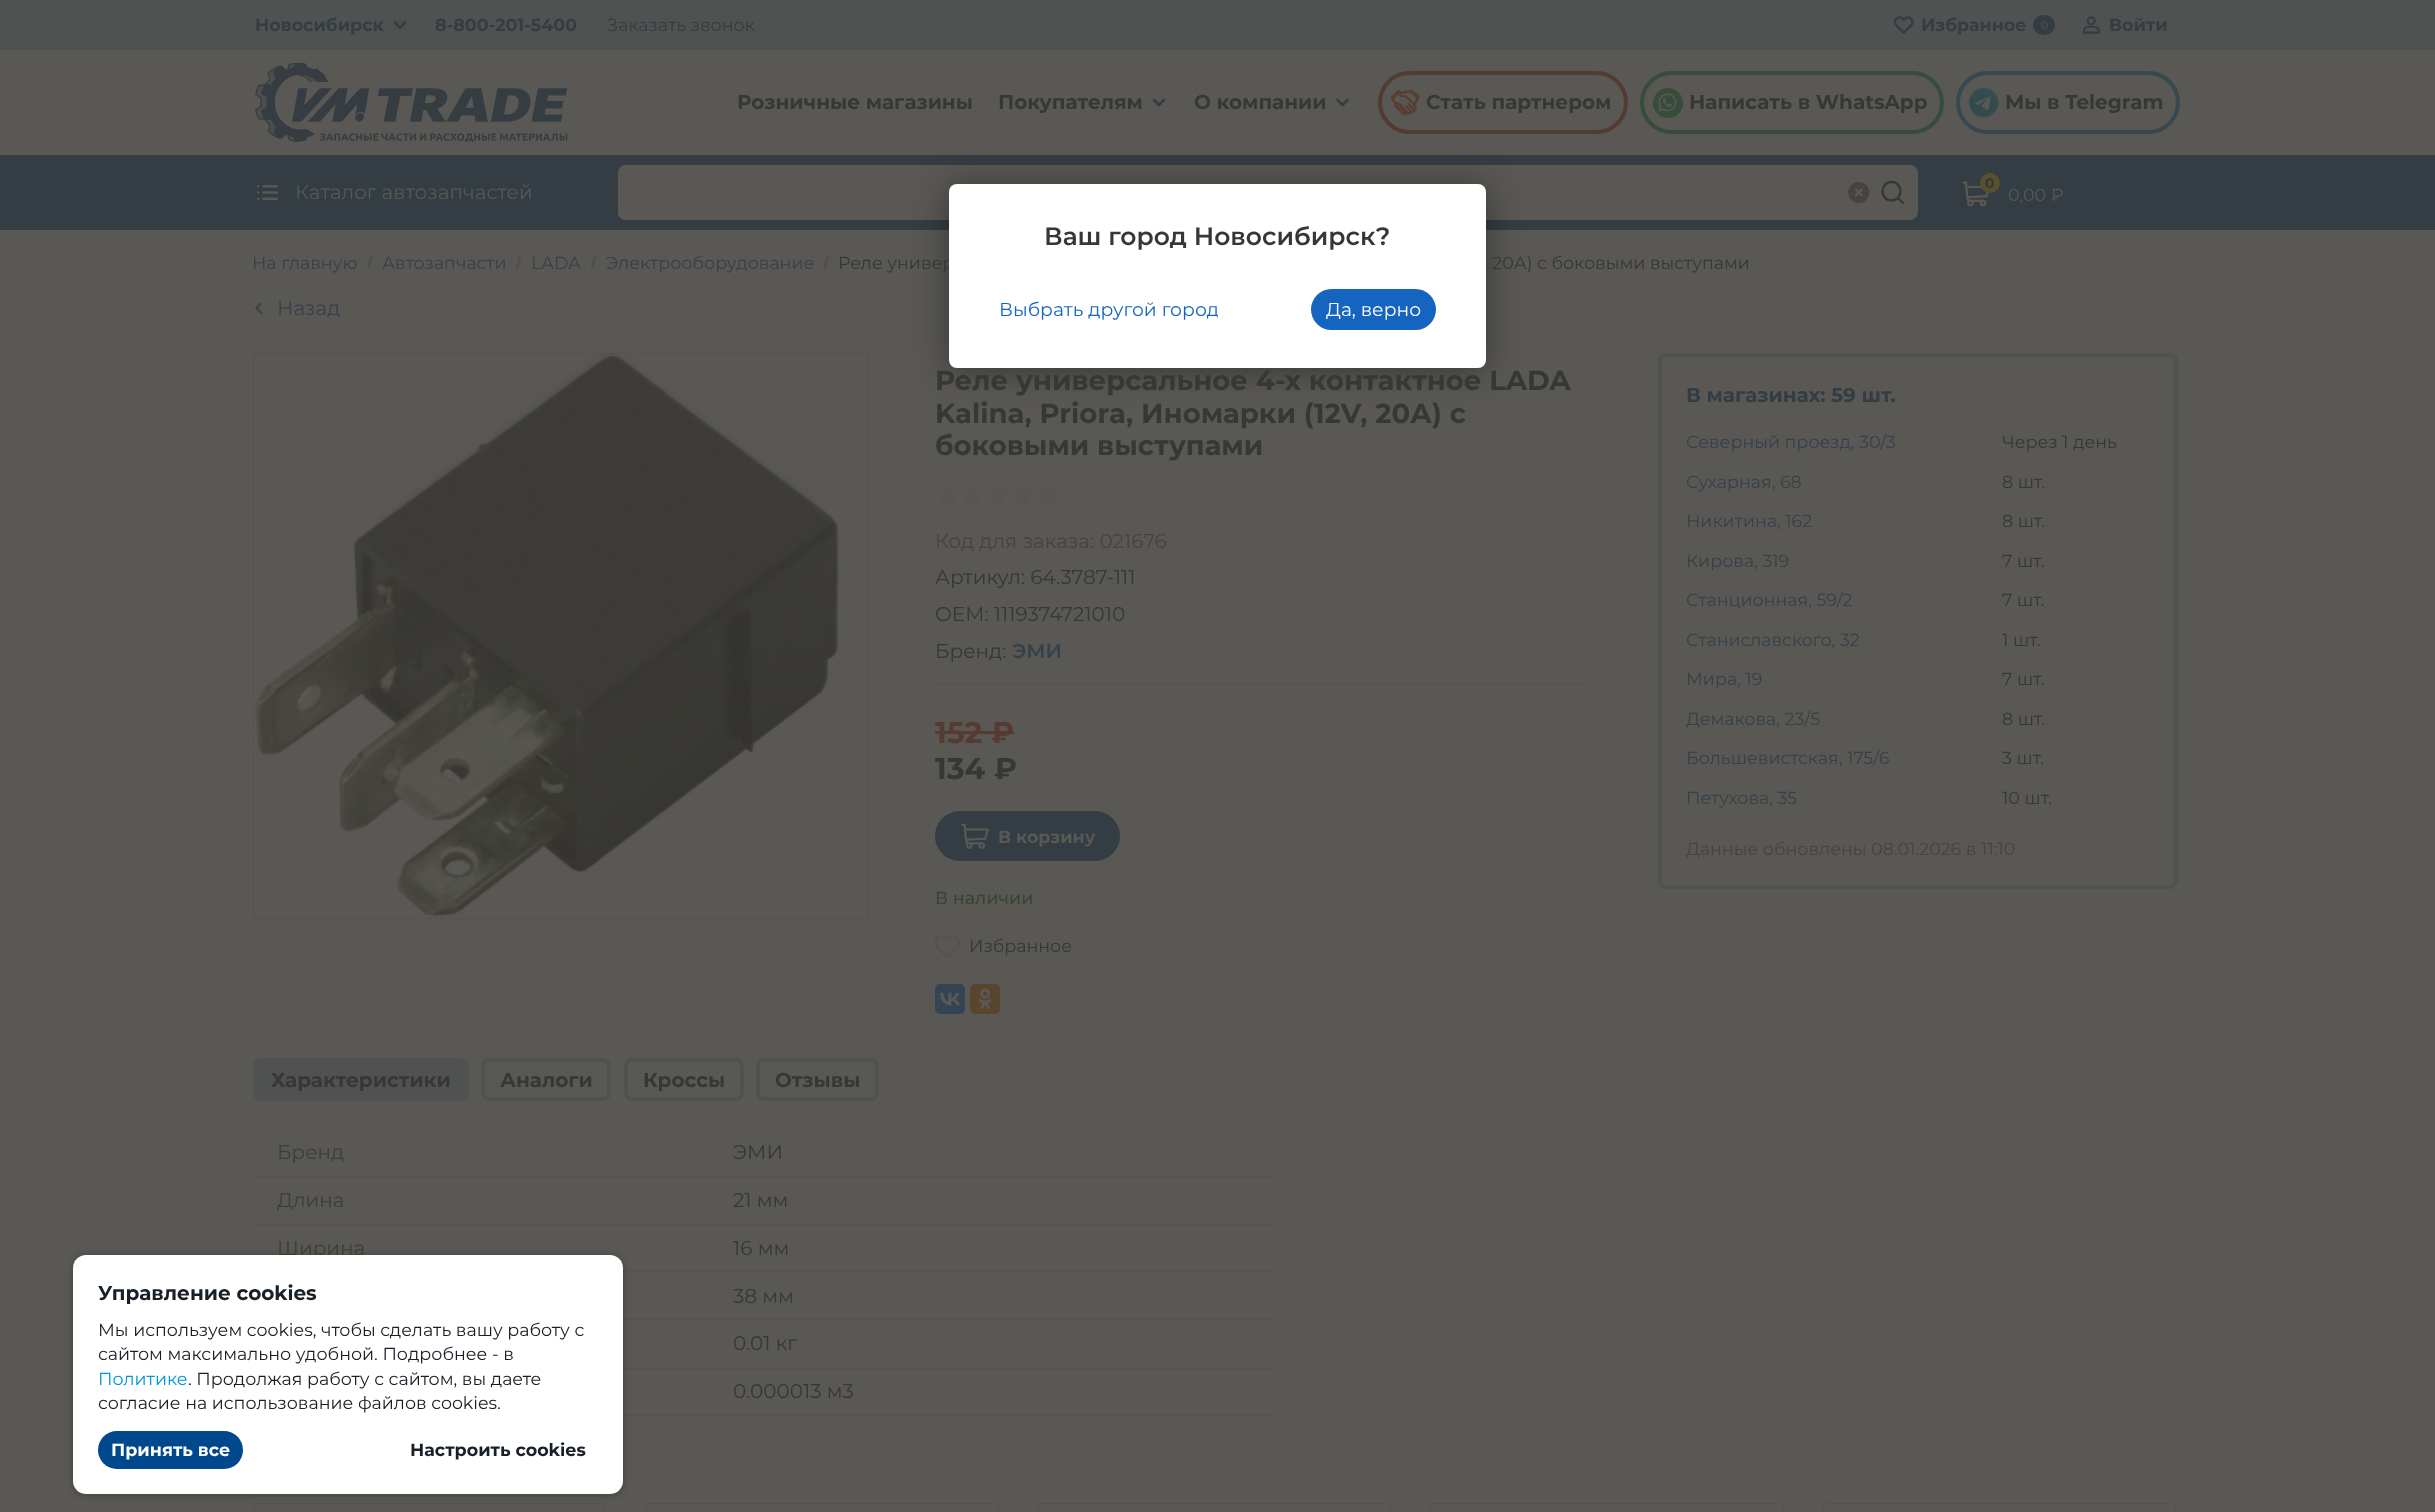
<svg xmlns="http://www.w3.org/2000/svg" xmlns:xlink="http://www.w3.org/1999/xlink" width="2435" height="1512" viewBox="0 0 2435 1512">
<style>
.cls-1{font:bold 17.5px Montserrat;fill:#333d43}
.cls-2{font:17.5px Montserrat;fill:#333d43}
.cls-3{font:11px Montserrat;fill:#595854}
.cls-4{font:bold 20px Montserrat;fill:#373734}
.cls-5{font:20px Montserrat;fill:#595854}
.cls-6{font:bold 14px Montserrat;fill:#373734}
.cls-7{font:17.5px Montserrat;fill:#595854}
.cls-8{font:17.5px Montserrat;fill:#36414b}
.cls-9{font:17.5px Montserrat;fill:#373734}
.cls-10{font:20px Montserrat;fill:#36414b}
.cls-11{font:bold 27.5px Montserrat;fill:#373734}
.cls-12{font:20px Montserrat;fill:#454440}
.cls-13{font:20px Montserrat;fill:#373734}
.cls-14{font:600 20px Montserrat;fill:#36414b}
.cls-15{font:bold 30px Montserrat;fill:#573a32}
.cls-16{font:bold 30px Montserrat;fill:#373734}
.cls-17{font:bold 17.5px Montserrat;fill:#595854}
.cls-18{font:500 17.5px Montserrat;fill:#384533}
.cls-19{font:bold 20px Montserrat;fill:#333d43}
.cls-20{font:17.5px Montserrat;fill:#454440}
.cls-21{font:20px Montserrat;fill:#3e3e38}
.cls-22{font:600 25px Montserrat;fill:#373734}
.cls-23{font:18.75px Montserrat;fill:#1565c0}
.cls-24{font:18.75px Montserrat;fill:#ffffff}
.cls-25{font:bold 20px Montserrat;fill:#181f26}
.cls-26{font:17.5px Montserrat;fill:#181f26}
.cls-27{font:17.5px Montserrat;fill:#0194e2}
.cls-28{font:bold 17.5px Montserrat;fill:#ffffff}
.cls-29{font:bold 17.5px Montserrat;fill:#181f26}
</style>
<defs>
<clipPath id="clip1"><rect x="999" y="289" width="220" height="41" rx="20.5"/></clipPath>
</defs>
<rect width="100%" height="100%" fill="#595854"/>
<rect fill="#505251" x="0" y="0" width="2435" height="50"/>
<path fill="none" stroke="#333d43" stroke-width="2.5" stroke-linecap="round" stroke-linejoin="round" d="M395 22.5L400 27.5L405 22.5"/>
<image xlink:href="image0.png" x="1894" y="16" width="20" height="18"/>
<rect fill="#333d43" x="2033" y="15" width="22" height="20" rx="10"/>
<image xlink:href="image1.png" x="2082" y="16" width="18" height="18"/>
<image xlink:href="image2.png" x="255" y="63" width="313" height="80"/>
<path fill="none" stroke="#333d43" stroke-width="2.5" stroke-linecap="round" stroke-linejoin="round" d="M1154 100L1159 105L1164 100"/>
<path fill="none" stroke="#333d43" stroke-width="2.5" stroke-linecap="round" stroke-linejoin="round" d="M1337.5 100L1342.5 105L1347.5 100"/>
<image xlink:href="image3.png" x="1390" y="89" width="30" height="27"/>
<rect fill="none" stroke="#533b32" stroke-width="4" x="1380" y="73" width="246" height="59" rx="29.5"/>
<image xlink:href="image4.png" x="1653" y="88" width="30" height="30"/>
<rect fill="none" stroke="#374c3a" stroke-width="4" x="1642" y="73" width="300" height="59" rx="29.5"/>
<image xlink:href="image5.png" x="1968" y="87" width="31" height="31"/>
<rect fill="none" stroke="#37494e" stroke-width="4" x="1958" y="73" width="220" height="59" rx="29.5"/>
<rect fill="#333d43" x="0" y="155" width="2435" height="75"/>
<image xlink:href="image6.png" x="256" y="185" width="23" height="15"/>
<rect fill="#595854" x="618" y="165" width="1300" height="55" rx="8"/>
<path fill="#595854" d="M626 165H1838C1841 165 1843 167 1843 170V215C1843 218 1841 220 1838 220H626C621.5 220 618 216.5 618 212V173C618 168.5 621.5 165 626 165Z"/>
<image xlink:href="image7.png" x="1848" y="181" width="22" height="23"/>
<path fill="none" stroke="#373734" stroke-width="2.3" stroke-linecap="round" stroke-linejoin="round" d="M1891.5 200.5C1903.5 200.5 1903.5 182 1891.5 182C1879.5 182 1879.5 200.5 1891.5 200.5ZM1903 203L1898 198"/>
<image xlink:href="image8.png" x="1962" y="181" width="27" height="26"/>
<circle fill="#59502e" cx="1990" cy="183" r="10"/>
<image xlink:href="image9.png" x="367" y="256" width="6" height="13"/>
<image xlink:href="image10.png" x="516" y="256" width="6" height="13"/>
<image xlink:href="image10.png" x="591" y="256" width="6" height="13"/>
<image xlink:href="image11.png" x="823" y="256" width="6" height="13"/>
<image xlink:href="image12.png" x="255" y="303" width="7" height="11"/>
<rect fill="none" stroke="#53524d" x="253.5" y="353.5" width="614" height="565"/>
<image xlink:href="image13.png" x="253" y="353" width="613" height="565"/>
<image xlink:href="image14.png" x="936" y="484" width="23" height="21"/>
<image xlink:href="image14.png" x="961" y="484" width="23" height="21"/>
<image xlink:href="image14.png" x="986" y="484" width="23" height="21"/>
<image xlink:href="image14.png" x="1011" y="484" width="23" height="21"/>
<image xlink:href="image14.png" x="1036" y="484" width="23" height="21"/>
<rect fill="#53524d" x="935" y="684" width="655" height="1"/>
<rect fill="#573a32" x="935" y="731" width="79" height="3"/>
<rect fill="#333d43" x="935" y="811" width="185" height="50" rx="25"/>
<image xlink:href="image15.png" x="961" y="823" width="28" height="26"/>
<image xlink:href="image16.png" x="935" y="935" width="25" height="23"/>
<rect fill="#334454" x="935" y="984" width="30" height="30" rx="5"/>
<image xlink:href="image17.png" x="940" y="992" width="20" height="14"/>
<rect fill="#59442e" x="970" y="984" width="30" height="30" rx="5"/>
<image xlink:href="image18.png" x="978" y="988" width="14" height="21"/>
<rect fill="none" stroke="#505251" stroke-width="4" x="1660" y="355" width="516" height="532" rx="6"/>
<rect fill="#575651" x="1685" y="461" width="464" height="1"/>
<rect fill="#575651" x="1685" y="501" width="464" height="1"/>
<rect fill="#575651" x="1685" y="540" width="464" height="1"/>
<rect fill="#575651" x="1685" y="580" width="464" height="1"/>
<rect fill="#575651" x="1685" y="620" width="464" height="1"/>
<rect fill="#575651" x="1685" y="659" width="464" height="1"/>
<rect fill="#575651" x="1685" y="699" width="464" height="1"/>
<rect fill="#575651" x="1685" y="738" width="464" height="1"/>
<rect fill="#575651" x="1685" y="778" width="464" height="1"/>
<rect fill="#575651" x="1685" y="818" width="464" height="1"/>
<rect fill="#505251" x="253" y="1058" width="216" height="43" rx="8"/>
<rect fill="none" stroke="#505251" stroke-width="4" x="483" y="1060" width="126" height="39" rx="6"/>
<rect fill="none" stroke="#505251" stroke-width="4" x="626" y="1060" width="116" height="39" rx="6"/>
<rect fill="none" stroke="#505251" stroke-width="4" x="758" y="1060" width="119" height="39" rx="6"/>
<rect fill="#54534f" x="251" y="1176" width="1022" height="1"/>
<rect fill="#54534f" x="251" y="1224" width="1022" height="1"/>
<rect fill="#54534f" x="623" y="1271" width="650" height="1"/>
<rect fill="#54534f" x="623" y="1319" width="650" height="1"/>
<rect fill="#54534f" x="623" y="1368" width="650" height="1"/>
<rect fill="#54534f" x="623" y="1415" width="650" height="1"/>
<rect fill="none" stroke="#53524e" x="253.5" y="1503.5" width="352" height="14" rx="4.5"/>
<rect fill="none" stroke="#53524e" x="645.5" y="1503.5" width="353" height="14" rx="4.5"/>
<rect fill="none" stroke="#53524e" x="1038.5" y="1503.5" width="352" height="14" rx="4.5"/>
<rect fill="none" stroke="#53524e" x="1430.5" y="1503.5" width="353" height="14" rx="4.5"/>
<rect fill="none" stroke="#53524e" x="1823.5" y="1503.5" width="352" height="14" rx="4.5"/>
<rect fill="#000000" fill-opacity="0.4" filter="blur(17px)" x="949" y="186" width="537" height="184" rx="8"/>
<rect fill="#000000" fill-opacity="0.3" filter="blur(3px)" x="73" y="1256" width="550" height="239" rx="13"/>
<text class="cls-1" x="255" y="31">Новосибирск</text>
<text class="cls-1" x="435" y="31">8-800-201-5400</text>
<text class="cls-2" x="607" y="31">Заказать звонок</text>
<text class="cls-1" x="1921" y="31">Избранное</text>
<text class="cls-3" x="2041" y="29">0</text>
<text class="cls-1" x="2109" y="31">Войти</text>
<text class="cls-4" x="737" y="109">Розничные магазины</text>
<text class="cls-4" x="998" y="109">Покупателям</text>
<text class="cls-4" x="1194" y="109">О компании</text>
<text class="cls-4" x="1426" y="109">Стать партнером</text>
<text class="cls-4" x="1689" y="109">Написать в WhatsApp</text>
<text class="cls-4" x="2005" y="109">Мы в Telegram</text>
<text class="cls-5" x="295" y="199">Каталог автозапчастей</text>
<text class="cls-6" x="1985" y="188">0</text>
<text class="cls-7" x="2008" y="201">0,00 ₽</text>
<text class="cls-8" x="252" y="269">На главную</text>
<text class="cls-8" x="382" y="269">Автозапчасти</text>
<text class="cls-8" x="531" y="269">LADA</text>
<text class="cls-8" x="606" y="269">Электрооборудование</text>
<text class="cls-9" x="838" y="269">Реле универ</text>
<text class="cls-9" x="1484" y="269">, 20А) с боковыми выступами</text>
<text class="cls-10" x="277" y="315">Назад</text>
<text class="cls-11"><tspan x="935" y="390">Реле универсальное 4-х контактное LADA</tspan><tspan x="935" y="423">Kalina, Priora, Иномарки (12V, 20А) с</tspan><tspan x="935" y="455">боковыми выступами</tspan></text>
<text class="cls-12" x="935" y="548">Код для заказа: 021676</text>
<text class="cls-13"><tspan x="935" y="584">Артикул: 64.3787-111</tspan><tspan x="935" y="621">OEM: 1119374721010</tspan><tspan x="935" y="658">Бренд:</tspan></text>
<text class="cls-14" x="1012" y="658">ЭМИ</text>
<text class="cls-15" x="935" y="743">152 ₽</text>
<text class="cls-16" x="935" y="779">134 ₽</text>
<text class="cls-17" x="998" y="843">В корзину</text>
<text class="cls-18" x="935" y="904">В наличии</text>
<text class="cls-9" x="969" y="952">Избранное</text>
<text class="cls-19" x="1686" y="402">В магазинах: 59 шт.</text>
<text class="cls-8" x="1686" y="448">Северный проезд, 30/3</text>
<text class="cls-9" x="2002" y="448">Через 1 день</text>
<text class="cls-8" x="1686" y="488">Сухарная, 68</text>
<text class="cls-9" x="2002" y="488">8 шт.</text>
<text class="cls-8" x="1686" y="527">Никитина, 162</text>
<text class="cls-9" x="2002" y="527">8 шт.</text>
<text class="cls-8" x="1686" y="567">Кирова, 319</text>
<text class="cls-9" x="2002" y="567">7 шт.</text>
<text class="cls-8" x="1686" y="606">Станционная, 59/2</text>
<text class="cls-9" x="2002" y="606">7 шт.</text>
<text class="cls-8" x="1686" y="646">Станиславского, 32</text>
<text class="cls-9" x="2002" y="646">1 шт.</text>
<text class="cls-8" x="1686" y="685">Мира, 19</text>
<text class="cls-9" x="2002" y="685">7 шт.</text>
<text class="cls-8" x="1686" y="725">Демакова, 23/5</text>
<text class="cls-9" x="2002" y="725">8 шт.</text>
<text class="cls-8" x="1686" y="764">Большевистская, 175/6</text>
<text class="cls-9" x="2002" y="764">3 шт.</text>
<text class="cls-8" x="1686" y="804">Петухова, 35</text>
<text class="cls-9" x="2002" y="804">10 шт.</text>
<text class="cls-20" x="1686" y="855">Данные обновлены 08.01.2026 в 11:10</text>
<text class="cls-4" x="271" y="1087">Характеристики</text>
<text class="cls-4" x="500" y="1087">Аналоги</text>
<text class="cls-4" x="643" y="1087">Кроссы</text>
<text class="cls-4" x="775" y="1087">Отзывы</text>
<text class="cls-21" x="277" y="1159">Бренд</text>
<text class="cls-13" x="733" y="1159">ЭМИ</text>
<text class="cls-21" x="277" y="1207">Длина</text>
<text class="cls-13" x="733" y="1207">21 мм</text>
<text class="cls-21" x="277" y="1255">Ширина</text>
<text class="cls-13" x="733" y="1255">16 мм</text>
<text class="cls-13" x="733" y="1303">38 мм</text>
<text class="cls-13" x="733" y="1350">0.01 кг</text>
<text class="cls-13" x="733" y="1398">0.000013 м3</text>
<rect fill="#ffffff" x="949" y="184" width="537" height="184" rx="8"/>
<text class="cls-22" x="1044" y="245">Ваш город Новосибирск?</text>
<g clip-path="url(#clip1)">
<text class="cls-23" x="999" y="316">Выбрать другой город</text>
</g>
<rect fill="#1565c0" x="1311" y="289" width="125" height="41" rx="20.5"/>
<text class="cls-24" x="1326" y="316">Да, верно</text>
<rect fill="#ffffff" x="73" y="1255" width="550" height="239" rx="13"/>
<text class="cls-25" x="98" y="1300">Управление cookies</text>
<text class="cls-26"><tspan x="98" y="1336">Мы используем cookies, чтобы сделать вашу работу с</tspan><tspan x="98" y="1360">сайтом максимально удобной. Подробнее - в</tspan></text>
<text class="cls-27" x="98" y="1385">Политике</text>
<text class="cls-26" x="188" y="1385">. Продолжая работу с сайтом, вы даете</text>
<text class="cls-26" x="98" y="1409">согласие на использование файлов cookies.</text>
<rect fill="#00488d" x="98" y="1431" width="145" height="38" rx="19"/>
<text class="cls-28" x="111" y="1456">Принять все</text>
<text class="cls-29" x="410" y="1456">Настроить cookies</text>
</svg>
